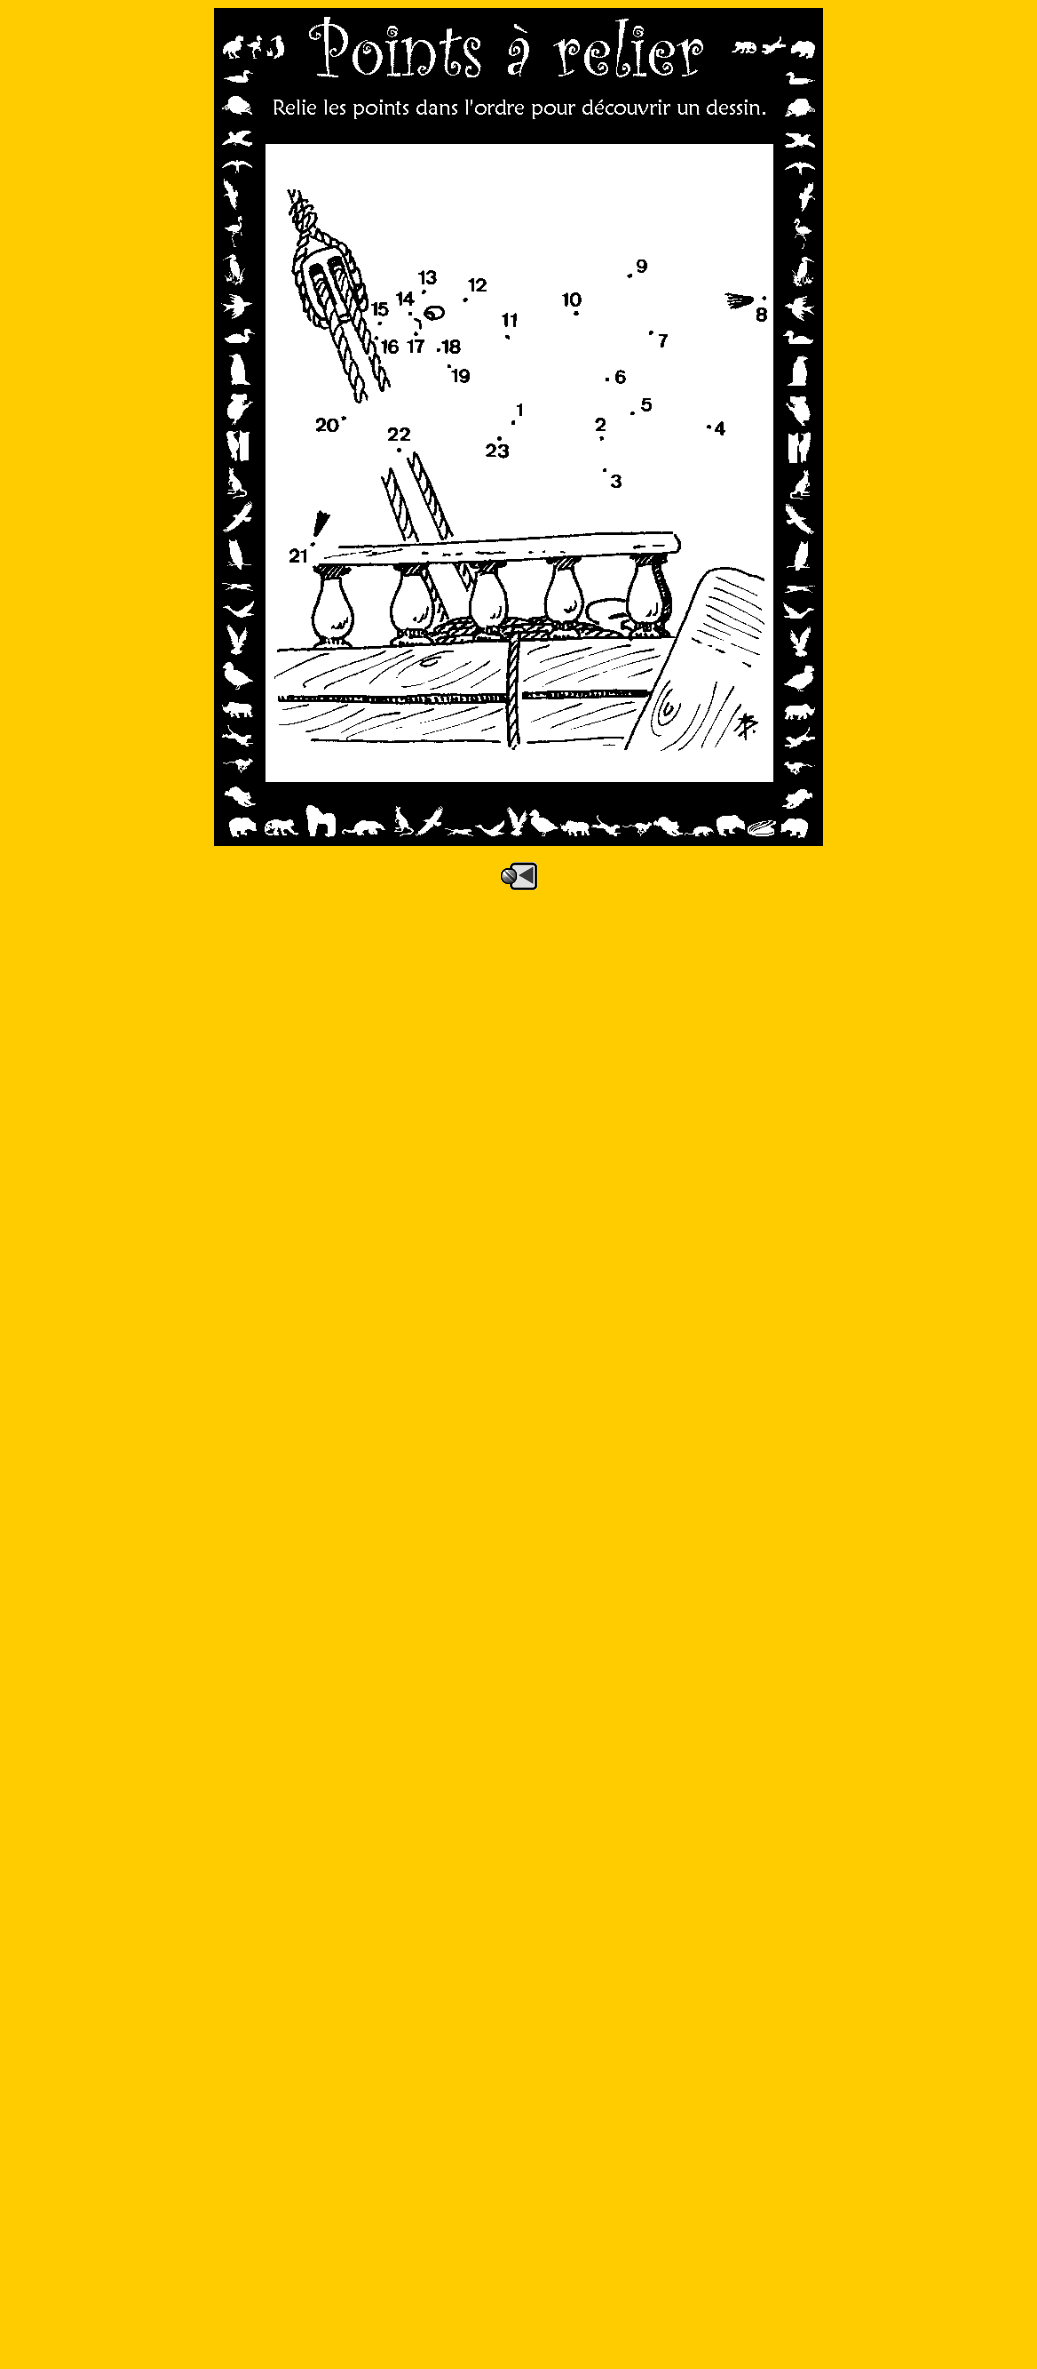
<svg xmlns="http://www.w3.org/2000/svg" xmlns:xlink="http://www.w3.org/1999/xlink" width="1037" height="2369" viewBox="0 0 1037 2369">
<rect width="100%" height="100%" fill="#ffcc00"/>
<image xlink:href="image0.png" x="214" y="8" width="609" height="838"/>
<image xlink:href="image1.png" x="501" y="862" width="36" height="28"/>
</svg>
